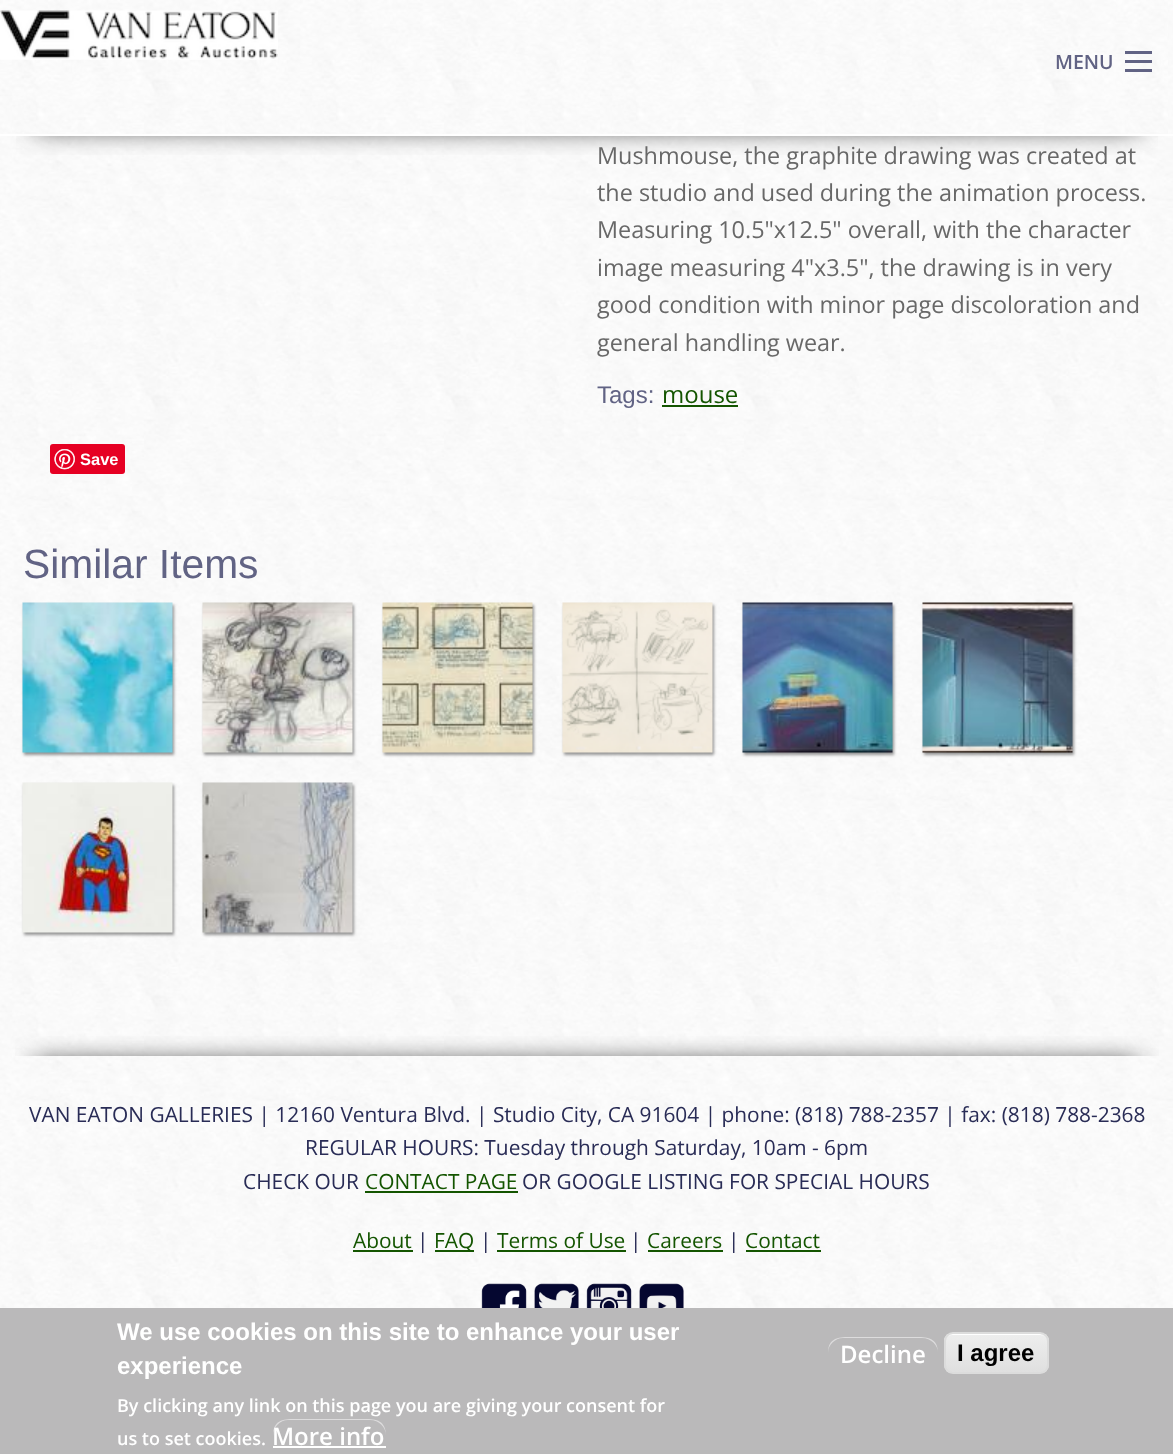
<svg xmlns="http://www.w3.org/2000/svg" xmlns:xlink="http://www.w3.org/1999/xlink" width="1173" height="1454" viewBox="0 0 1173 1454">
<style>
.cls-1{font:600 19.5px Open Sans;fill:#616384}
.cls-2{font:23.4px Open Sans;fill:#686868}
.cls-3{font:24px Liberation Sans;fill:#616384}
.cls-4{font:24px Open Sans;fill:#145500}
.cls-5{font:bold 16.5px Liberation Sans;fill:#ffffff}
.cls-6{font:40.75px Liberation Sans;fill:#616384}
.cls-7{font:20.88px Open Sans;fill:#292c56}
.cls-8{font:20.88px Open Sans;fill:#145500}
.cls-9{font:bold 24px Liberation Sans;fill:#ffffff}
.cls-10{font:600 18px Open Sans;fill:#ffffff}
.cls-11{font:600 24px Open Sans;fill:#ffffff}
.cls-12{font:bold 24px Liberation Sans;fill:#000000}
</style>
<defs>
<clipPath id="clip1"><rect x="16" y="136" width="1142" height="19"/></clipPath>
<clipPath id="clip2"><rect x="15" y="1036" width="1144" height="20"/></clipPath>
<clipPath id="clip3"><rect x="944" y="1332" width="105" height="42" rx="9"/></clipPath>
<linearGradient id="g1" gradientUnits="userSpaceOnUse" x1="996" y1="1334" x2="996" y2="1373"><stop offset="0.05" stop-color="#ededed"/><stop offset="1" stop-color="#dfdfdf"/></linearGradient>
</defs>
<rect width="100%" height="100%" fill="#ffffff"/>
<image xlink:href="image0.png" x="0" y="0" width="1173" height="1308"/>
<image xlink:href="image1.png" x="0" y="0" width="1168" height="134"/>
<g clip-path="url(#clip1)">
<rect fill="#000000" filter="blur(14px)" x="35" y="60" width="1104" height="66"/>
</g>
<rect fill="#ffffff" x="0" y="134" width="1173" height="2"/>
<image xlink:href="image2.png" x="0" y="10" width="278" height="50"/>
<rect fill="#616384" x="1125" y="69" width="27" height="3"/>
<rect fill="#616384" x="1125" y="60" width="27" height="3"/>
<rect fill="#616384" x="1125" y="51" width="27" height="3"/>
<rect fill="#145500" x="662" y="405" width="76" height="2"/>
<rect fill="#e60023" x="50" y="444" width="75" height="30" rx="3"/>
<image xlink:href="image3.png" x="54" y="449" width="21" height="21"/>
<rect fill="#000000" fill-opacity="0.4" filter="blur(1.5px)" x="24" y="605" width="150" height="150"/>
<image xlink:href="image4.png" x="22" y="602" width="151" height="151"/>
<rect fill="#000000" fill-opacity="0.4" filter="blur(1.5px)" x="204" y="605" width="150" height="150"/>
<image xlink:href="image5.png" x="202" y="602" width="151" height="151"/>
<rect fill="#000000" fill-opacity="0.4" filter="blur(1.5px)" x="384" y="605" width="150" height="150"/>
<image xlink:href="image6.png" x="382" y="602" width="151" height="151"/>
<rect fill="#000000" fill-opacity="0.4" filter="blur(1.5px)" x="564" y="605" width="150" height="150"/>
<image xlink:href="image7.png" x="562" y="602" width="151" height="151"/>
<rect fill="#000000" fill-opacity="0.4" filter="blur(1.5px)" x="744" y="605" width="150" height="150"/>
<image xlink:href="image8.png" x="742" y="602" width="151" height="151"/>
<rect fill="#000000" fill-opacity="0.4" filter="blur(1.5px)" x="924" y="605" width="150" height="150"/>
<image xlink:href="image9.png" x="922" y="602" width="151" height="151"/>
<rect fill="#000000" fill-opacity="0.4" filter="blur(1.5px)" x="24" y="785" width="150" height="150"/>
<image xlink:href="image10.png" x="22" y="782" width="151" height="151"/>
<rect fill="#000000" fill-opacity="0.4" filter="blur(1.5px)" x="204" y="785" width="150" height="150"/>
<image xlink:href="image11.png" x="202" y="782" width="151" height="151"/>
<g clip-path="url(#clip2)">
<rect fill="#000000" filter="blur(14px)" x="35" y="1065" width="1104" height="288"/>
</g>
<rect fill="#145500" x="365" y="1191" width="153" height="2"/>
<rect fill="#145500" x="353" y="1250" width="60" height="2"/>
<rect fill="#145500" x="435" y="1250" width="39" height="2"/>
<rect fill="#145500" x="497" y="1250" width="129" height="2"/>
<rect fill="#145500" x="648" y="1250" width="75" height="2"/>
<rect fill="#145500" x="746" y="1250" width="75" height="2"/>
<image xlink:href="image12.png" x="481" y="1283" width="46" height="25"/>
<image xlink:href="image13.png" x="534" y="1283" width="45" height="25"/>
<image xlink:href="image14.png" x="586" y="1283" width="46" height="25"/>
<image xlink:href="image15.png" x="639" y="1283" width="45" height="25"/>
<rect fill="#bab9ba" x="0" y="1308" width="1173" height="146"/>
<path fill="#dddcdd" d="M288 1420H370C379 1420 386 1427 386 1436C386 1417 372 1419 357 1419H302C287 1419 273 1417 273 1436C273 1427 280 1420 288 1420Z"/>
<rect fill="#ffffff" x="273" y="1446" width="113" height="2"/>
<path fill="#dddcdd" d="M843 1338H922C931 1338 938 1345 938 1353C938 1335 923 1337 910 1337H856C843 1337 828 1335 828 1353C828 1345 835 1338 843 1338Z"/>
<g clip-path="url(#clip3)">
<rect fill="url(#g1)" x="944" y="1334" width="105" height="39"/>
</g>
<path fill="#ffffff" d="M952 1335H1040C1044 1335 1047 1338 1047 1342C1047 1338 1043 1334 1039 1334H953C949 1334 945 1338 945 1342C945 1338 948 1335 952 1335Z"/>
<rect fill="none" stroke="#dcdcdc" stroke-width="2" x="945" y="1333" width="103" height="40" rx="8"/>
<text class="cls-1" x="1055" y="69">MENU</text>
<text class="cls-2"><tspan x="597" y="164">Mushmouse, the graphite drawing was created at</tspan><tspan x="597" y="201">the studio and used during the animation process.</tspan><tspan x="597" y="238">Measuring 10.5"x12.5" overall, with the character</tspan><tspan x="597" y="276">image measuring 4"x3.5", the drawing is in very</tspan><tspan x="597" y="313">good condition with minor page discoloration and</tspan><tspan x="597" y="351">general handling wear.</tspan></text>
<text class="cls-3" x="597" y="403">Tags:</text>
<text class="cls-4" x="662" y="403">mouse</text>
<text class="cls-5" x="80" y="465">Save</text>
<text class="cls-6" x="23" y="578">Similar Items</text>
<text class="cls-7" x="29" y="1122">VAN EATON GALLERIES | 12160 Ventura Blvd. | Studio City, CA 91604 | phone: (818) 788-2357 | fax: (818) 788-2368</text>
<text class="cls-7" x="305" y="1155">REGULAR HOURS: Tuesday through Saturday, 10am - 6pm</text>
<text class="cls-7" x="243" y="1189">CHECK OUR</text>
<text class="cls-8" x="365" y="1189">CONTACT PAGE</text>
<text class="cls-7" x="522" y="1189">OR GOOGLE LISTING FOR SPECIAL HOURS</text>
<text class="cls-8" x="353" y="1248">About</text>
<text class="cls-7" x="417" y="1248">|</text>
<text class="cls-8" x="434" y="1248">FAQ</text>
<text class="cls-7" x="480" y="1248">|</text>
<text class="cls-8" x="497" y="1248">Terms of Use</text>
<text class="cls-7" x="630" y="1248">|</text>
<text class="cls-8" x="647" y="1248">Careers</text>
<text class="cls-7" x="728" y="1248">|</text>
<text class="cls-8" x="745" y="1248">Contact</text>
<text class="cls-9"><tspan x="117" y="1340">We use cookies on this site to enhance your user</tspan><tspan x="117" y="1374">experience</tspan></text>
<text class="cls-10"><tspan x="117" y="1412">By clicking any link on this page you are giving your consent for</tspan><tspan x="117" y="1445">us to set cookies.</tspan></text>
<text class="cls-11" x="272" y="1445">More info</text>
<text class="cls-11" x="840" y="1363">Decline</text>
<text class="cls-12" x="957" y="1361">I agree</text>
</svg>
